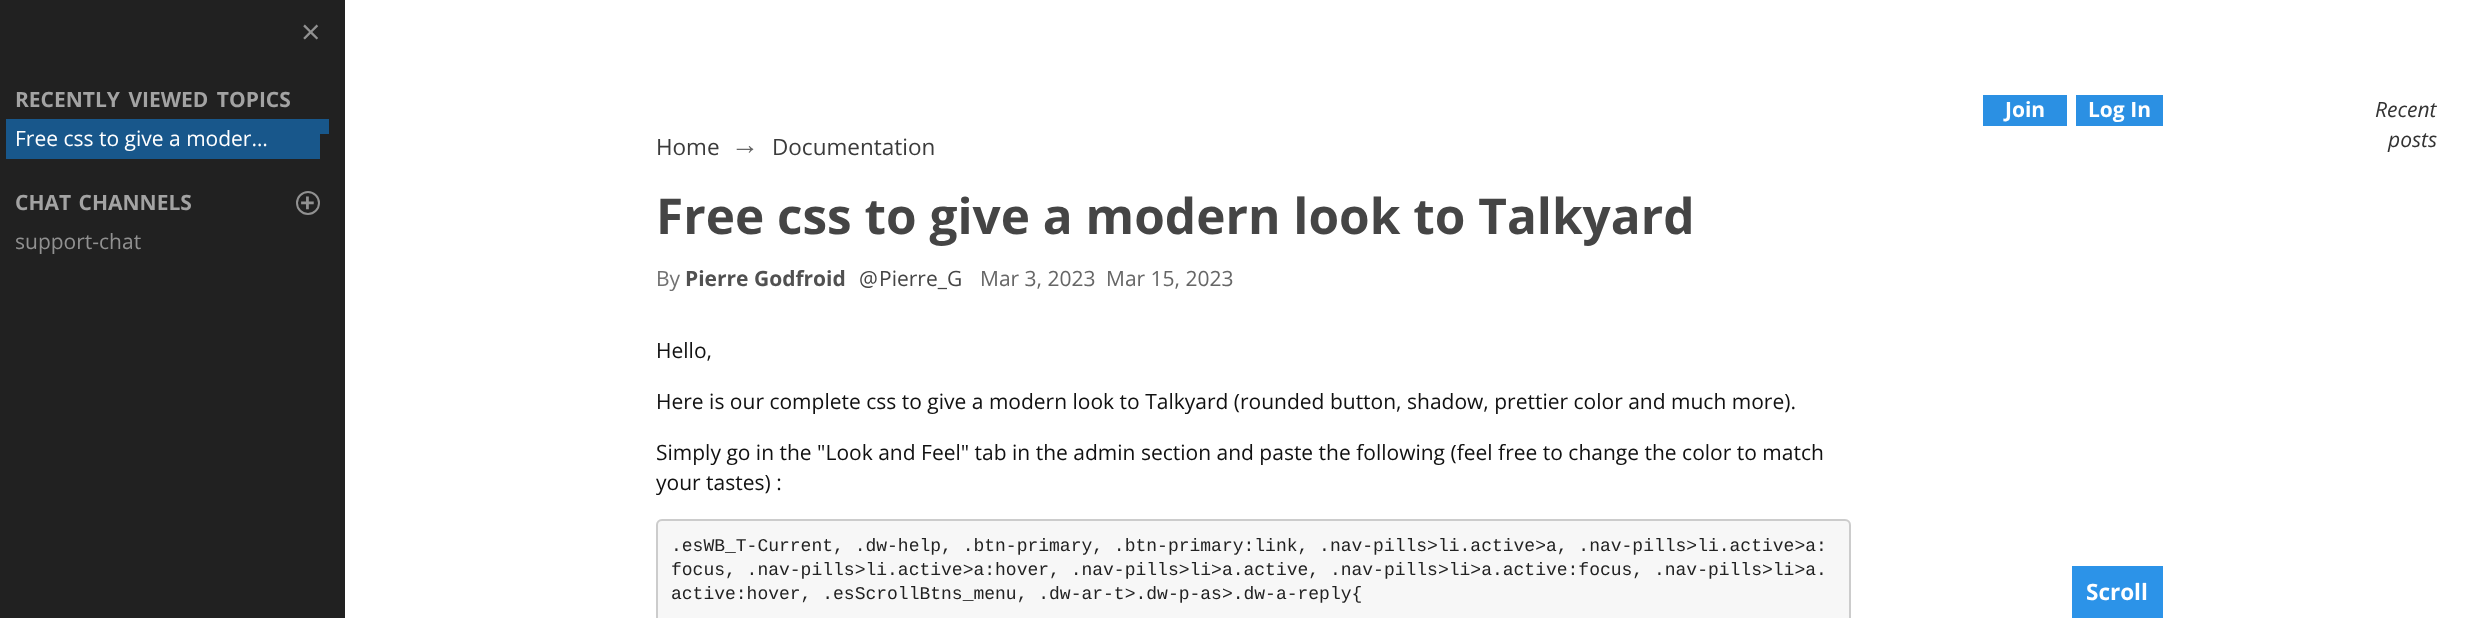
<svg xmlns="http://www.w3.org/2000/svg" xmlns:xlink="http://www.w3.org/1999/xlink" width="2466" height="618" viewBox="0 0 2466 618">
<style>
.cls-1{font:34px Open Sans;fill:#919191}
.cls-2{font:bold 21px Open Sans;fill:#a3a3a3}
.cls-3{font:21px Open Sans;fill:#ffffff}
.cls-4{font:bold 26px Open Sans;fill:#919191}
.cls-5{font:21px Open Sans;fill:#919191}
.cls-6{font:bold 21px Open Sans;fill:#ffffff}
.cls-7{font:italic 21px Open Sans;fill:#333333}
.cls-8{font:22.5px Open Sans;fill:#3b3b3b}
.cls-9{font:28px Liberation Sans;fill:#666666}
.cls-10{font:bold 49.5px Open Sans;fill:#454545}
.cls-11{font:21px Open Sans;fill:#727272}
.cls-12{font:bold 21px Open Sans;fill:#515151}
.cls-13{font:21px Open Sans;fill:#454545}
.cls-14{font:21px Open Sans;fill:#666666}
.cls-15{font:21px Open Sans;fill:#111111}
.cls-16{font:18px Liberation Mono;fill:#222222}
.cls-17{font:bold 22.5px Open Sans;fill:#ffffff}
</style>
<defs>
<clipPath id="clip1"><rect x="656" y="296" width="1245" height="322"/></clipPath>
</defs>
<rect width="100%" height="100%" fill="#ffffff"/>
<rect fill="#212121" x="0" y="0" width="345" height="618"/>
<rect fill="#18578b" x="6" y="119" width="314" height="40"/>
<rect fill="#18578b" x="320" y="119" width="9" height="15"/>
<circle fill="none" stroke="#919191" stroke-width="2" cx="308" cy="203" r="11"/>
<rect fill="#2b90e3" x="1983" y="95" width="84" height="31"/>
<rect fill="#2b90e3" x="2076" y="95" width="87" height="31"/>
<path fill="#f7f7f7" d="M662 519H1845C1848.5 519 1851 521.5 1851 525V618H656V525C656 521.5 658.5 519 662 519Z"/>
<rect fill="none" stroke="#cccccc" stroke-width="2" x="657" y="520" width="1193" height="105" rx="5"/>
<rect fill="#2c93e8" x="2072" y="566" width="91" height="52"/>
<text class="cls-1" x="301" y="44">×</text>
<text class="cls-2" x="15" y="107" word-spacing="3">RECENTLY VIEWED TOPICS</text>
<text class="cls-3" x="15" y="146">Free css to give a moder…</text>
<text class="cls-2" x="15" y="210" word-spacing="2">CHAT CHANNELS</text>
<text class="cls-4" x="300" y="212">+</text>
<text class="cls-5" x="15" y="249">support-chat</text>
<text class="cls-6" x="2005" y="117">Join</text>
<text class="cls-6" x="2088" y="117">Log In</text>
<text class="cls-7" x="2375" y="117">Recent</text>
<text class="cls-7" x="2388" y="147">posts</text>
<text class="cls-8" x="656" y="155">Home</text>
<text class="cls-9" x="731" y="154">→</text>
<text class="cls-8" x="772" y="155">Documentation</text>
<text class="cls-10" x="656" y="234">Free css to give a modern look to Talkyard</text>
<text class="cls-11" x="656" y="286">By</text>
<text class="cls-12" x="685" y="286">Pierre Godfroid</text>
<text class="cls-13" x="859" y="286">@</text>
<text class="cls-13" x="879" y="286">Pierre_G</text>
<text class="cls-14" x="980" y="286">Mar 3, 2023</text>
<text class="cls-14" x="1106" y="286">Mar 15, 2023</text>
<text class="cls-15" x="656" y="358">Hello,</text>
<text class="cls-15" x="656" y="409">Here is our complete css to give a modern look to Talkyard (rounded button, shadow, prettier color and much more).</text>
<text class="cls-15" x="656" y="460">Simply go in the "Look and Feel" tab in the admin section and paste the following (feel free to change the color to match</text>
<g clip-path="url(#clip1)">
<text class="cls-15" x="656" y="490">your tastes) :</text>
</g>
<text class="cls-16"><tspan x="671" y="551">.esWB_T-Current, .dw-help, .btn-primary, .btn-primary:link, .nav-pills&gt;li.active&gt;a, .nav-pills&gt;li.active&gt;a:</tspan><tspan x="671" y="575">focus, .nav-pills&gt;li.active&gt;a:hover, .nav-pills&gt;li&gt;a.active, .nav-pills&gt;li&gt;a.active:focus, .nav-pills&gt;li&gt;a.</tspan><tspan x="671" y="599">active:hover, .esScrollBtns_menu, .dw-ar-t&gt;.dw-p-as&gt;.dw-a-reply{</tspan></text>
<text class="cls-17" x="2086" y="600">Scroll</text>
</svg>
